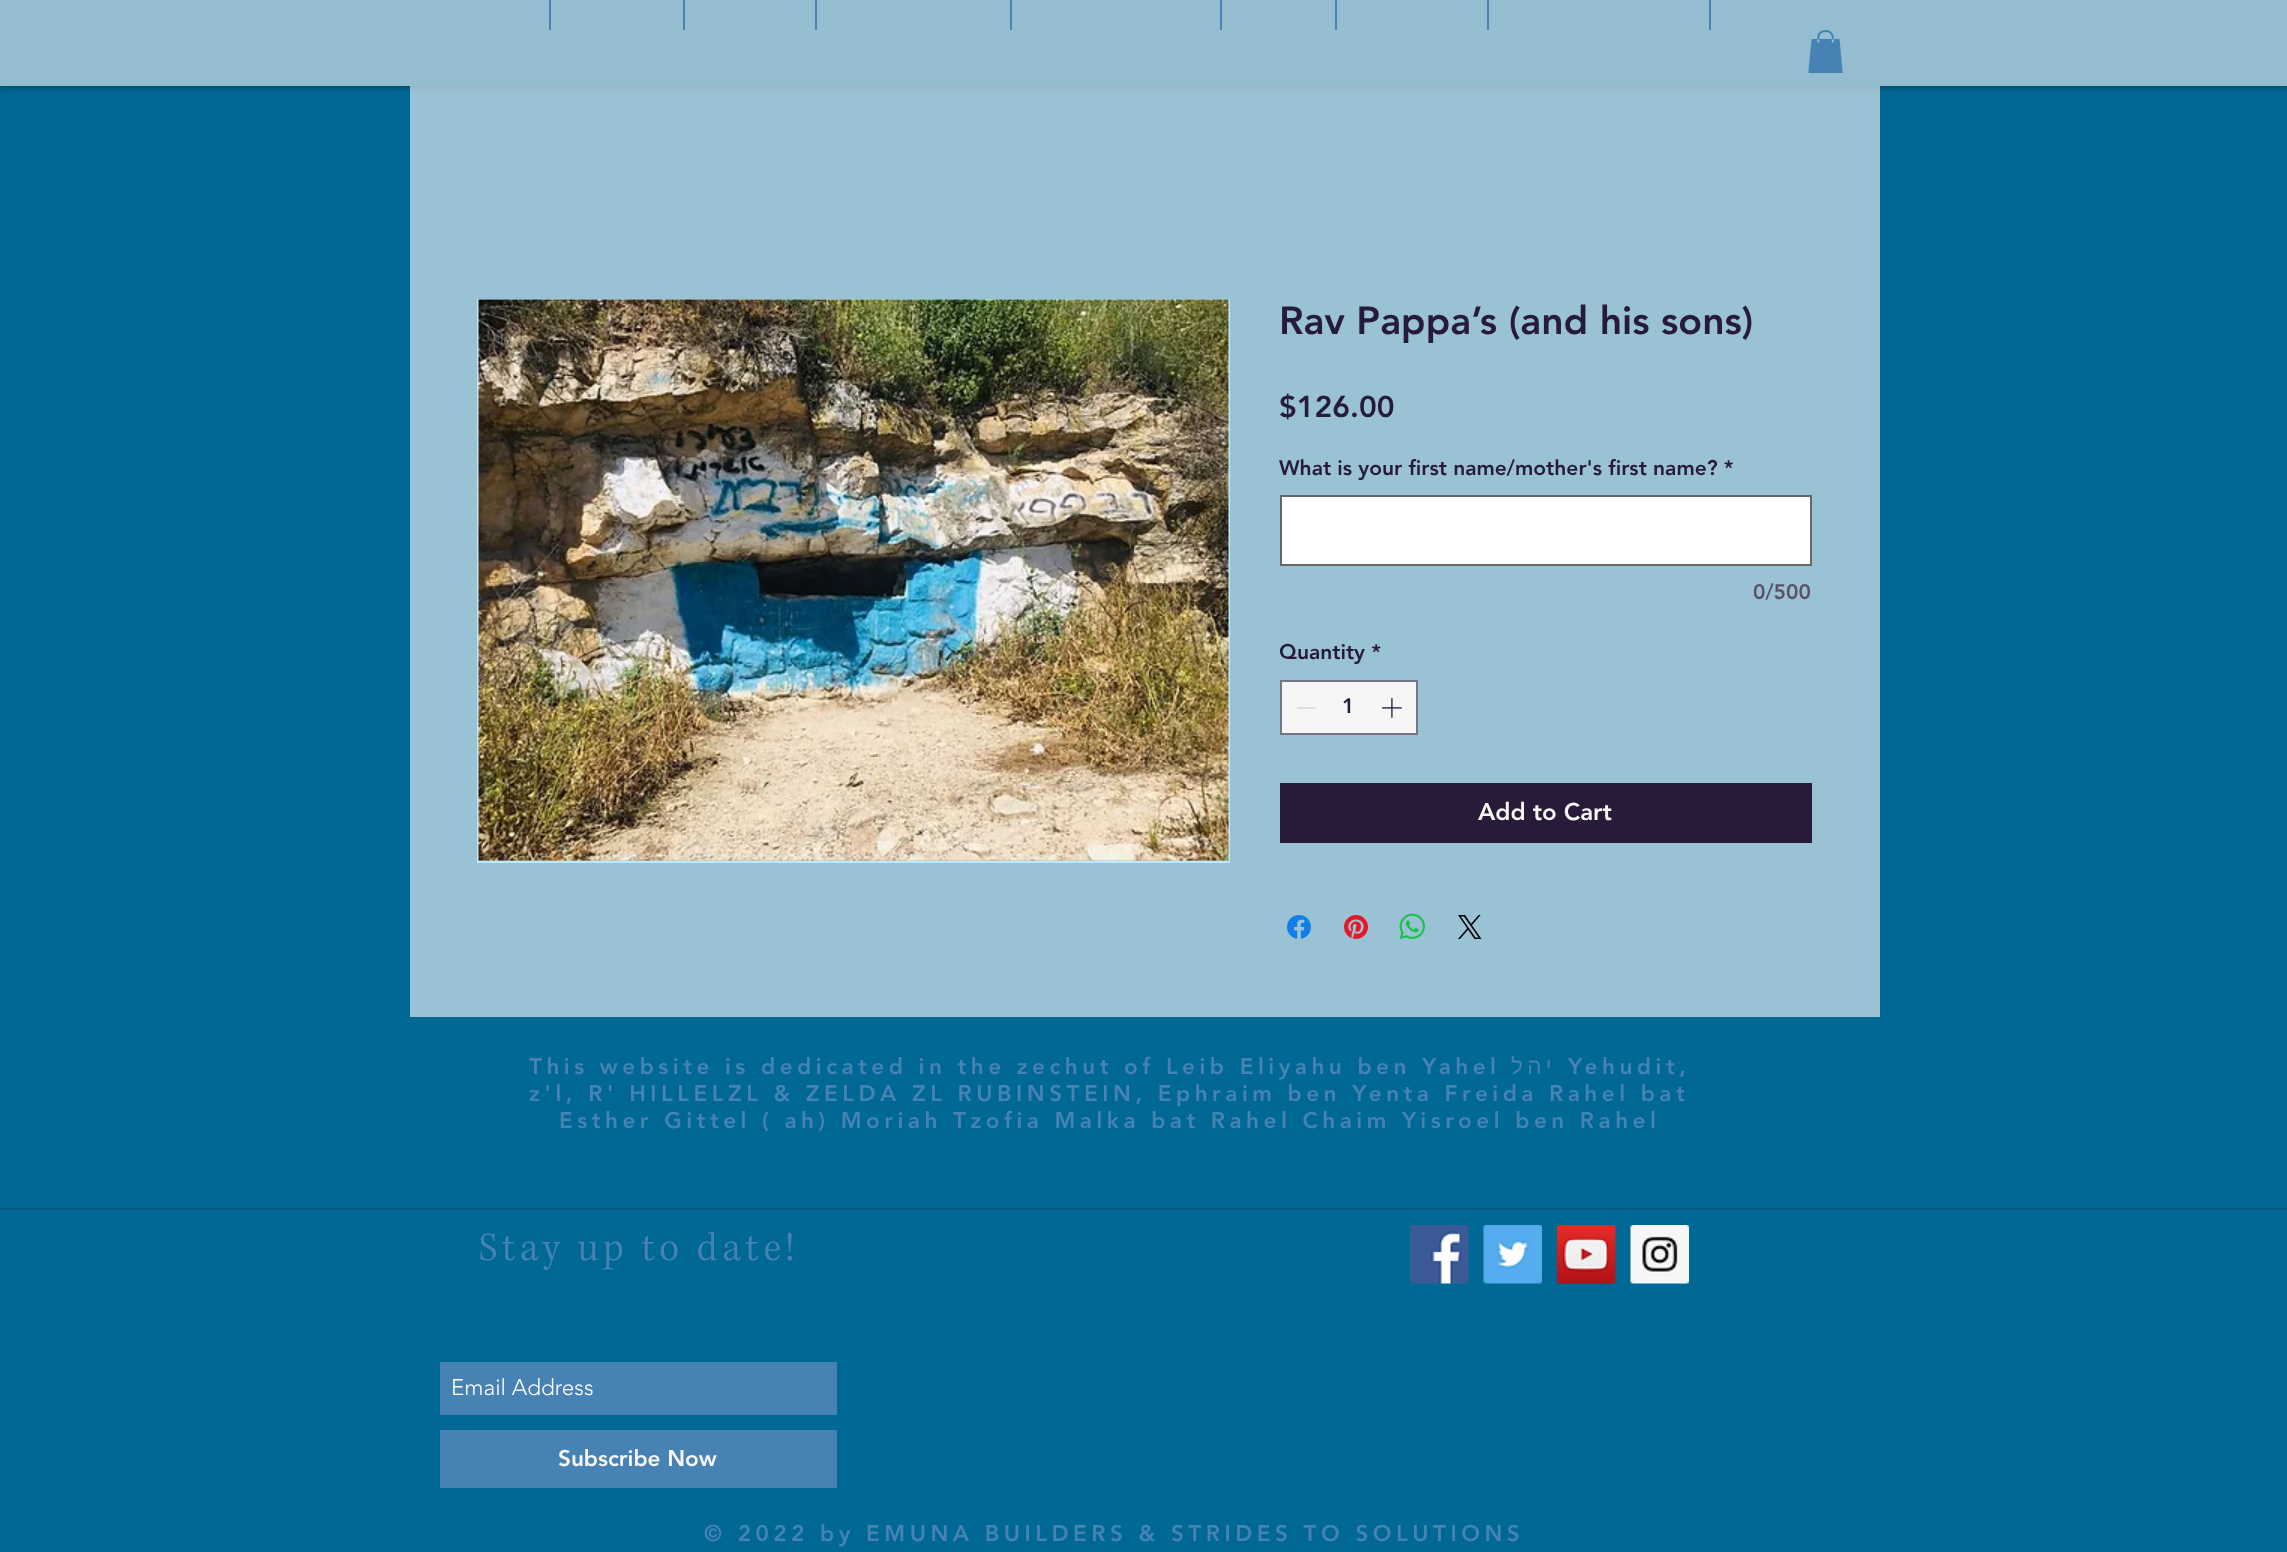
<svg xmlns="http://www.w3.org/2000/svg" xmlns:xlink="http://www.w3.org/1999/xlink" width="2287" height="1552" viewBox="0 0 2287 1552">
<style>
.cls-1{font:900 39px 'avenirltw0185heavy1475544';fill:#281a39}
.cls-2{font:900 30px 'avenirltw0185heavy1475544';fill:#281a39}
.cls-3{font:900 21px 'avenirltw0185heavy1475544';fill:#281a39}
.cls-4{font:900 21px 'avenirltw0185heavy1475544';fill:#5c5168}
.cls-5{font:900 24px 'avenirltw0185heavy1475544';fill:#f6f6f6}
.cls-6{font:900 22.5px 'avenirltw0185heavy1475544';letter-spacing:4.5px;fill:#4682b4}
.cls-7{font:22.5px Liberation Sans;letter-spacing:4.5px;direction:rtl;fill:#4682b4}
.cls-8{font:300 22.5px 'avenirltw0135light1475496';fill:#ffffff}
.cls-9{font:900 22.5px 'avenirltw0185heavy1475544';fill:#f6f6f6}
</style>
<defs>
<clipPath id="clip1"><path d="M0 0H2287V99H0ZM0-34H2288V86H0Z" clip-rule="evenodd"/></clipPath>
</defs>
<rect width="100%" height="100%" fill="#006894"/>
<g clip-path="url(#clip1)">
<rect fill="#000000" fill-opacity="0.5" filter="blur(4px)" x="0" y="-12" width="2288" height="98"/>
</g>
<rect fill="#f6f6f6" fill-opacity="0.6" x="0" y="0" width="2287" height="86"/>
<rect fill="#4682b4" x="549" y="0" width="2" height="30"/>
<rect fill="#4682b4" x="683" y="0" width="2" height="30"/>
<rect fill="#4682b4" x="815" y="0" width="2" height="30"/>
<rect fill="#4682b4" x="1010" y="0" width="2" height="30"/>
<rect fill="#4682b4" x="1220" y="0" width="2" height="30"/>
<rect fill="#4682b4" x="1335" y="0" width="2" height="30"/>
<rect fill="#4682b4" x="1487" y="0" width="2" height="30"/>
<rect fill="#4682b4" x="1709" y="0" width="2" height="30"/>
<image xlink:href="image0.png" x="1808" y="30" width="35" height="43"/>
<rect fill="#ffffff" fill-opacity="0.6" x="410" y="86" width="1470" height="931"/>
<rect fill="none" stroke="#bde9fb" stroke-width="2" x="478" y="300" width="751" height="562"/>
<image xlink:href="image1.png" x="478" y="299" width="751" height="562"/>
<rect fill="#ffffff" stroke="#666666" stroke-width="2" x="1281" y="496" width="530" height="69"/>
<rect fill="#f6f6f6" stroke="#7a7285" stroke-width="2" x="1281" y="681" width="136" height="53"/>
<rect fill="#dfdfdf" x="1297" y="707" width="19" height="2"/>
<image xlink:href="image2.png" x="1382" y="698" width="20" height="20"/>
<rect fill="#281a39" x="1280" y="783" width="532" height="60"/>
<image xlink:href="image3.png" x="1287" y="915" width="24" height="24"/>
<image xlink:href="image4.png" x="1344" y="915" width="24" height="24"/>
<image xlink:href="image5.png" x="1399" y="913" width="26" height="27"/>
<image xlink:href="image6.png" x="1458" y="915" width="24" height="24"/>
<rect fill="#0a557d" x="0" y="1208" width="2287" height="2"/>
<image xlink:href="image7.png" x="480" y="1231" width="312" height="39"/>
<image xlink:href="image8.png" x="1410" y="1225" width="59" height="59"/>
<image xlink:href="image9.png" x="1483" y="1225" width="59" height="59"/>
<image xlink:href="image10.png" x="1557" y="1225" width="59" height="59"/>
<image xlink:href="image11.png" x="1630" y="1225" width="59" height="59"/>
<rect fill="#4682b4" x="440" y="1362" width="397" height="53"/>
<rect fill="#4682b4" x="440" y="1430" width="397" height="58"/>
<text class="cls-1" x="1279" y="334">Rav Pappa’s (and his sons)</text>
<text class="cls-2" x="1279" y="417">$126.00</text>
<text class="cls-3" x="1279" y="475">What is your first name/mother's first name? *</text>
<text class="cls-4" x="1753" y="599">0/500</text>
<text class="cls-3" x="1279" y="659">Quantity *</text>
<text class="cls-3" x="1342" y="713">1</text>
<text class="cls-5" x="1478" y="820">Add to Cart</text>
<text class="cls-6" x="529" y="1074">This website is dedicated in the zechut of Leib Eliyahu ben Yahel</text>
<text class="cls-7" x="1556" y="1074">יהל</text>
<text class="cls-6" x="1568" y="1074">Yehudit,</text>
<text class="cls-6" x="529" y="1101">z'l, R' HILLELZL &amp; ZELDA ZL RUBINSTEIN, Ephraim ben Yenta Freida Rahel bat</text>
<text class="cls-6" x="559" y="1128">Esther Gittel ( ah) Moriah Tzofia Malka bat Rahel Chaim Yisroel ben Rahel</text>
<text class="cls-8" x="451" y="1395">Email Address</text>
<text class="cls-9" x="558" y="1466">Subscribe Now</text>
<text class="cls-6" x="704" y="1541">© 2022 by EMUNA BUILDERS &amp; STRIDES TO SOLUTIONS</text>
</svg>
